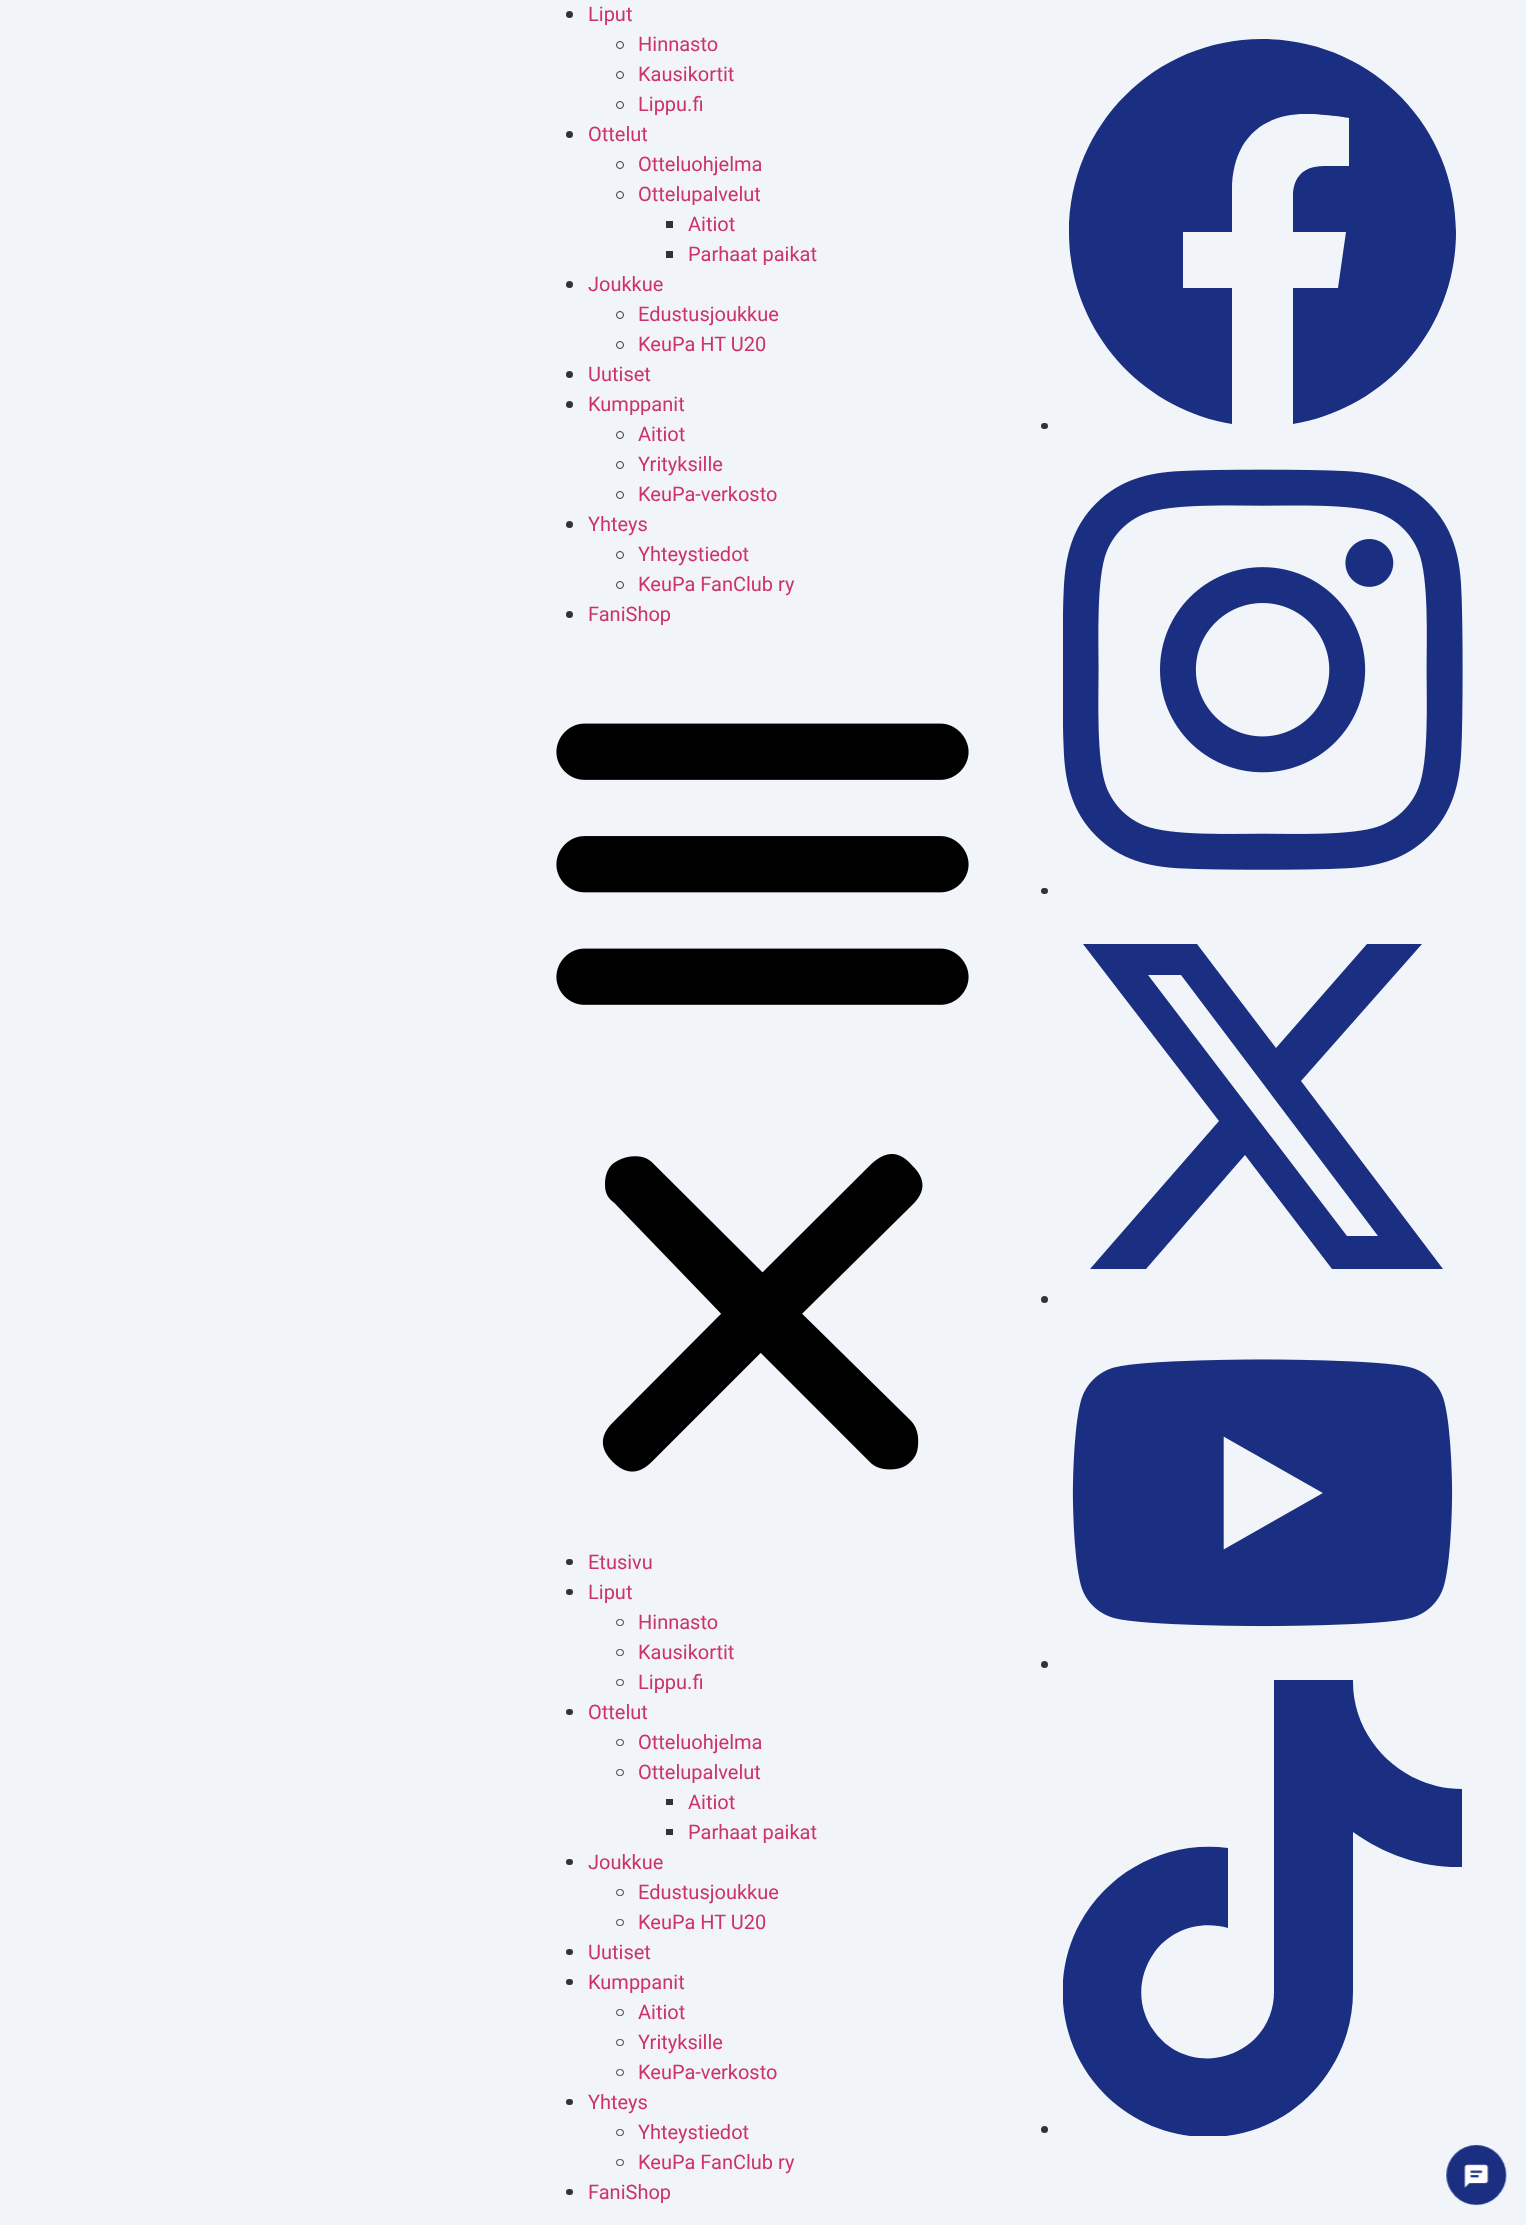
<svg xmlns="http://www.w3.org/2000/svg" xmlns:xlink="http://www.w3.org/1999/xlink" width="1526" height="2225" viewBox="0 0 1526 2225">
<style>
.cls-1{font:20px Roboto;fill:#cc3366}
</style>
<defs>
<clipPath id="clip1"><rect x="1063" y="1680" width="400" height="456"/></clipPath>
</defs>
<rect width="100%" height="100%" fill="#f1f4f9"/>
<circle fill="#333333" cx="569.5" cy="14.5" r="3.5"/>
<circle fill="none" stroke="#333333" cx="620" cy="45" r="3.5"/>
<circle fill="none" stroke="#333333" cx="620" cy="75" r="3.5"/>
<circle fill="none" stroke="#333333" cx="620" cy="105" r="3.5"/>
<circle fill="#333333" cx="569.5" cy="134.5" r="3.5"/>
<circle fill="none" stroke="#333333" cx="620" cy="165" r="3.5"/>
<circle fill="none" stroke="#333333" cx="620" cy="195" r="3.5"/>
<rect fill="#333333" x="666" y="221" width="7" height="7"/>
<rect fill="#333333" x="666" y="251" width="7" height="7"/>
<circle fill="#333333" cx="569.5" cy="284.5" r="3.5"/>
<circle fill="none" stroke="#333333" cx="620" cy="315" r="3.5"/>
<circle fill="none" stroke="#333333" cx="620" cy="345" r="3.5"/>
<circle fill="#333333" cx="569.5" cy="374.5" r="3.5"/>
<circle fill="#333333" cx="569.5" cy="404.5" r="3.5"/>
<circle fill="none" stroke="#333333" cx="620" cy="435" r="3.5"/>
<circle fill="none" stroke="#333333" cx="620" cy="465" r="3.5"/>
<circle fill="none" stroke="#333333" cx="620" cy="495" r="3.5"/>
<circle fill="#333333" cx="569.5" cy="524.5" r="3.5"/>
<circle fill="none" stroke="#333333" cx="620" cy="555" r="3.5"/>
<circle fill="none" stroke="#333333" cx="620" cy="585" r="3.5"/>
<circle fill="#333333" cx="569.5" cy="614.5" r="3.5"/>
<image xlink:href="image0.png" x="556" y="723" width="413" height="282"/>
<image xlink:href="image1.png" x="602" y="1154" width="321" height="318"/>
<rect fill="#333333" x="566" y="1559" width="7" height="6" rx="3"/>
<rect fill="#333333" x="566" y="1589" width="7" height="6" rx="3"/>
<rect fill="none" stroke="#333333" x="616.5" y="1619.5" width="7" height="6" rx="3"/>
<rect fill="none" stroke="#333333" x="616.5" y="1649.5" width="7" height="6" rx="3"/>
<rect fill="none" stroke="#333333" x="616.5" y="1679.5" width="7" height="6" rx="3"/>
<rect fill="#333333" x="566" y="1709" width="7" height="6" rx="3"/>
<rect fill="none" stroke="#333333" x="616.5" y="1739.5" width="7" height="6" rx="3"/>
<rect fill="none" stroke="#333333" x="616.5" y="1769.5" width="7" height="6" rx="3"/>
<rect fill="#333333" x="666" y="1799" width="7" height="6"/>
<rect fill="#333333" x="666" y="1829" width="7" height="6"/>
<rect fill="#333333" x="566" y="1859" width="7" height="6" rx="3"/>
<rect fill="none" stroke="#333333" x="616.5" y="1889.5" width="7" height="6" rx="3"/>
<rect fill="none" stroke="#333333" x="616.5" y="1919.5" width="7" height="6" rx="3"/>
<rect fill="#333333" x="566" y="1949" width="7" height="6" rx="3"/>
<rect fill="#333333" x="566" y="1979" width="7" height="6" rx="3"/>
<rect fill="none" stroke="#333333" x="616.5" y="2009.5" width="7" height="6" rx="3"/>
<rect fill="none" stroke="#333333" x="616.5" y="2039.5" width="7" height="6" rx="3"/>
<rect fill="none" stroke="#333333" x="616.5" y="2069.5" width="7" height="6" rx="3"/>
<rect fill="#333333" x="566" y="2099" width="7" height="6" rx="3"/>
<rect fill="none" stroke="#333333" x="616.5" y="2129.5" width="7" height="6" rx="3"/>
<rect fill="none" stroke="#333333" x="616.5" y="2159.5" width="7" height="6" rx="3"/>
<rect fill="#333333" x="566" y="2189" width="7" height="6" rx="3"/>
<path fill="#1a2f81" d="M1456 232C1456 125 1370 39 1262 39C1155 39 1069 125 1069 232C1069 329 1140 409 1232 424V288H1183V232H1232V190C1232 141 1261 114 1305 114C1327 114 1349 118 1349 118V166H1324C1300 166 1293 181 1293 196V232H1346L1338 288H1293V424C1385 409 1456 329 1456 232Z"/>
<rect fill="#333333" x="1041" y="423" width="7" height="6" rx="3"/>
<image xlink:href="image2.png" x="1063" y="469" width="400" height="401"/>
<rect fill="#333333" x="1041" y="888" width="7" height="6" rx="3"/>
<path fill="#1a2f81" d="M1367 944H1422L1301 1081L1443 1269H1332L1245 1155L1146 1269H1090L1219 1121L1083 944H1197L1276 1048ZM1347 1236H1378L1181 975H1148Z"/>
<circle fill="#333333" cx="1044.5" cy="1299.5" r="3.5"/>
<image xlink:href="image3.png" x="1072" y="1359" width="381" height="268"/>
<circle fill="#333333" cx="1044.5" cy="1664.5" r="3.5"/>
<circle fill="#333333" cx="1044.5" cy="2129.5" r="3.5"/>
<g clip-path="url(#clip1)">
<path fill="#1a2f81" d="M1462 1867C1423 1868 1385 1855 1353 1832V1992C1353 2052 1315 2107 1259 2128C1202 2149 1138 2133 1098 2087C1059 2042 1051 1976 1080 1923C1109 1870 1168 1840 1228 1848V1928C1200 1920 1170 1930 1154 1953C1137 1977 1137 2008 1154 2031C1171 2055 1201 2064 1228 2055C1256 2046 1274 2021 1274 1992V1680H1353C1352 1740 1403 1789 1462 1789Z"/>
</g>
<image xlink:href="image4.png" x="1446" y="2145" width="61" height="61"/>
<text class="cls-1" x="588" y="21">Liput</text>
<text class="cls-1"><tspan x="638" y="51">Hinnasto</tspan><tspan x="638" y="81">Kausikortit</tspan><tspan x="638" y="111">Lippu.fi</tspan></text>
<text class="cls-1" x="588" y="141">Ottelut</text>
<text class="cls-1"><tspan x="638" y="171">Otteluohjelma</tspan><tspan x="638" y="201">Ottelupalvelut</tspan></text>
<text class="cls-1"><tspan x="688" y="231">Aitiot</tspan><tspan x="688" y="261">Parhaat paikat</tspan></text>
<text class="cls-1" x="588" y="291">Joukkue</text>
<text class="cls-1"><tspan x="638" y="321">Edustusjoukkue</tspan><tspan x="638" y="351">KeuPa HT U20</tspan></text>
<text class="cls-1"><tspan x="588" y="381">Uutiset</tspan><tspan x="588" y="411">Kumppanit</tspan></text>
<text class="cls-1"><tspan x="638" y="441">Aitiot</tspan><tspan x="638" y="471">Yrityksille</tspan><tspan x="638" y="501">KeuPa-verkosto</tspan></text>
<text class="cls-1" x="588" y="531">Yhteys</text>
<text class="cls-1"><tspan x="638" y="561">Yhteystiedot</tspan><tspan x="638" y="591">KeuPa FanClub ry</tspan></text>
<text class="cls-1" x="588" y="621">FaniShop</text>
<text class="cls-1"><tspan x="588" y="1569">Etusivu</tspan><tspan x="588" y="1599">Liput</tspan></text>
<text class="cls-1"><tspan x="638" y="1629">Hinnasto</tspan><tspan x="638" y="1659">Kausikortit</tspan><tspan x="638" y="1689">Lippu.fi</tspan></text>
<text class="cls-1" x="588" y="1719">Ottelut</text>
<text class="cls-1"><tspan x="638" y="1749">Otteluohjelma</tspan><tspan x="638" y="1779">Ottelupalvelut</tspan></text>
<text class="cls-1"><tspan x="688" y="1809">Aitiot</tspan><tspan x="688" y="1839">Parhaat paikat</tspan></text>
<text class="cls-1" x="588" y="1869">Joukkue</text>
<text class="cls-1"><tspan x="638" y="1899">Edustusjoukkue</tspan><tspan x="638" y="1929">KeuPa HT U20</tspan></text>
<text class="cls-1"><tspan x="588" y="1959">Uutiset</tspan><tspan x="588" y="1989">Kumppanit</tspan></text>
<text class="cls-1"><tspan x="638" y="2019">Aitiot</tspan><tspan x="638" y="2049">Yrityksille</tspan><tspan x="638" y="2079">KeuPa-verkosto</tspan></text>
<text class="cls-1" x="588" y="2109">Yhteys</text>
<text class="cls-1"><tspan x="638" y="2139">Yhteystiedot</tspan><tspan x="638" y="2169">KeuPa FanClub ry</tspan></text>
<text class="cls-1" x="588" y="2199">FaniShop</text>
</svg>
